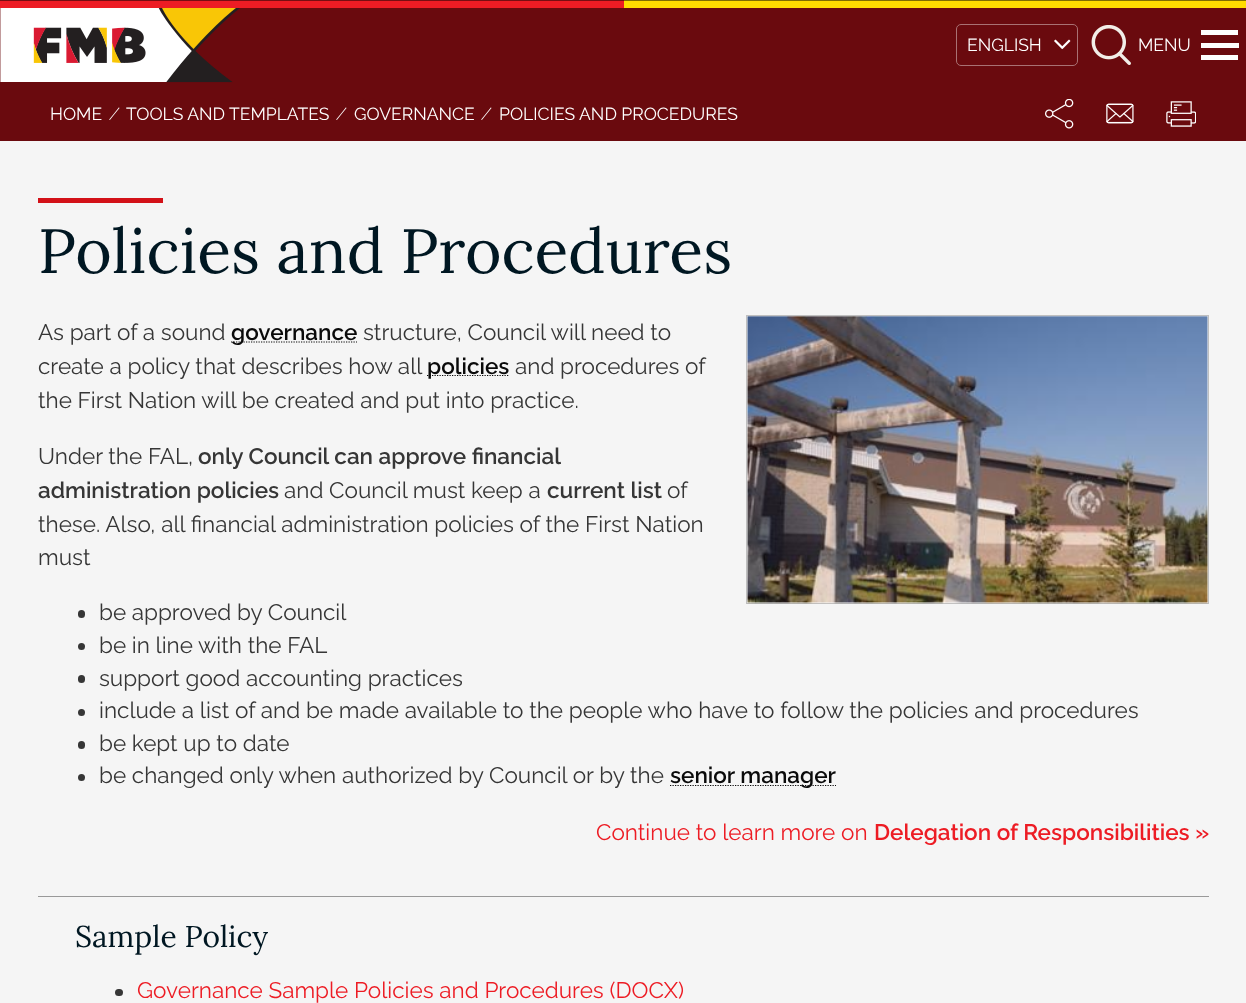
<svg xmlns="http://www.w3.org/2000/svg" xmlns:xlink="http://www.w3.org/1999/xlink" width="1246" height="1003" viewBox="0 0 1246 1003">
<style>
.cls-1{font:17.5px Raleway;fill:#ffffff}
.cls-2{font:62.5px Lora;fill:#001722}
.cls-3{font:22.5px Raleway;fill:#363636}
.cls-4{font:600 22.5px Raleway;fill:#0a0a0a}
.cls-5{font:600 22.5px Raleway;fill:#363636}
.cls-6{font:22.5px Raleway;fill:#ed1c24}
.cls-7{font:600 22.5px Raleway;fill:#ed1c24}
.cls-8{font:30px Lora;fill:#001722}
</style>
<rect width="100%" height="100%" fill="#ed1c24"/>
<rect fill="#770e12" x="0" y="0" width="624" height="1"/>
<rect fill="#ffdd00" x="624" y="1" width="622" height="7"/>
<rect fill="#806f00" x="624" y="0" width="622" height="1"/>
<rect fill="#6a0a0e" x="0" y="8" width="1246" height="133"/>
<image xlink:href="image0.png" x="0" y="8" width="240" height="75"/>
<image xlink:href="image1.png" x="1054" y="39" width="17" height="11"/>
<rect fill="none" stroke="#a97173" x="956.5" y="24.5" width="121" height="41" rx="4.5"/>
<image xlink:href="image2.png" x="1091" y="25" width="40" height="40"/>
<rect fill="#fefefe" x="1201" y="30" width="37" height="5"/>
<rect fill="#fefefe" x="1201" y="55" width="37" height="5"/>
<rect fill="#fefefe" x="1201" y="43" width="38" height="5"/>
<image xlink:href="image3.png" x="1045" y="99" width="29" height="30"/>
<image xlink:href="image4.png" x="1106" y="103" width="28" height="21"/>
<image xlink:href="image5.png" x="1166" y="101" width="30" height="26"/>
<rect fill="#f5f5f5" x="0" y="141" width="1246" height="862"/>
<rect fill="#d31118" x="38" y="198" width="125" height="5"/>
<path fill="none" stroke="#0a0a0a" stroke-width="1.2" stroke-dasharray="1.25 1.25" d="M231 342H357"/>
<path fill="none" stroke="#0a0a0a" stroke-width="1.2" stroke-dasharray="1.25 1.25" d="M427 375.5H509.5"/>
<rect fill="none" stroke="#bfbfbf" x="746.5" y="315.5" width="462" height="288"/>
<image xlink:href="image6.png" x="747" y="316" width="461" height="288"/>
<rect fill="#363636" x="78" y="610" width="7" height="8" rx="3.5"/>
<circle fill="#363636" cx="81.5" cy="646.5" r="3.5"/>
<rect fill="#363636" x="78" y="675" width="7" height="8" rx="3.5"/>
<circle fill="#363636" cx="81.5" cy="712.5" r="3.5"/>
<rect fill="#363636" x="78" y="741" width="7" height="8" rx="3.5"/>
<circle fill="#363636" cx="81.5" cy="777.5" r="3.5"/>
<path fill="none" stroke="#0a0a0a" stroke-width="1.2" stroke-dasharray="1.25 1.25" d="M670 785.5H836"/>
<rect fill="#999999" x="38" y="896" width="1171" height="1"/>
<rect fill="#363636" x="115" y="989" width="8" height="7" rx="3.5"/>
<text class="cls-1" x="967" y="51">ENGLISH</text>
<text class="cls-1" x="1138" y="51">MENU</text>
<text class="cls-1" x="50" y="120">HOME</text>
<text class="cls-1" x="113" y="120">⁄</text>
<text class="cls-1" x="126" y="120">TOOLS AND TEMPLATES</text>
<text class="cls-1" x="340" y="120">⁄</text>
<text class="cls-1" x="354" y="120">GOVERNANCE</text>
<text class="cls-1" x="485" y="120">⁄</text>
<text class="cls-1" x="499" y="120">POLICIES AND PROCEDURES</text>
<text class="cls-2" x="38" y="273">Policies and Procedures</text>
<text class="cls-3" x="38" y="340">As part of a sound</text>
<text class="cls-4" x="231" y="340">governance</text>
<text class="cls-3" x="363" y="340">structure, Council will need to</text>
<text class="cls-3" x="38" y="374">create a policy that describes how all</text>
<text class="cls-4" x="427" y="374">policies</text>
<text class="cls-3" x="515" y="374">and procedures of</text>
<text class="cls-3" x="38" y="408">the First Nation will be created and put into practice.</text>
<text class="cls-3" x="38" y="464">Under the FAL,</text>
<text class="cls-5" x="198" y="464">only Council can approve financial</text>
<text class="cls-5" x="38" y="498">administration policies</text>
<text class="cls-3" x="284" y="498">and Council must keep a</text>
<text class="cls-5" x="547" y="498">current list</text>
<text class="cls-3" x="667" y="498">of</text>
<text class="cls-3"><tspan x="38" y="532">these. Also, all financial administration policies of the First Nation</tspan><tspan x="38" y="565">must</tspan></text>
<text class="cls-3"><tspan x="99" y="620">be approved by Council</tspan><tspan x="99" y="653">be in line with the FAL</tspan><tspan x="99" y="686">support good accounting practices</tspan><tspan x="99" y="718">include a list of and be made available to the people who have to follow the policies and procedures</tspan><tspan x="99" y="751">be kept up to date</tspan><tspan x="99" y="783">be changed only when authorized by Council or by the</tspan></text>
<text class="cls-4" x="670" y="783">senior manager</text>
<text class="cls-6" x="596" y="840">Continue to learn more on</text>
<text class="cls-7" x="874" y="840">Delegation of Responsibilities »</text>
<text class="cls-8" x="75" y="947">Sample Policy</text>
<text class="cls-6" x="137" y="998">Governance Sample Policies and Procedures (DOCX)</text>
</svg>
